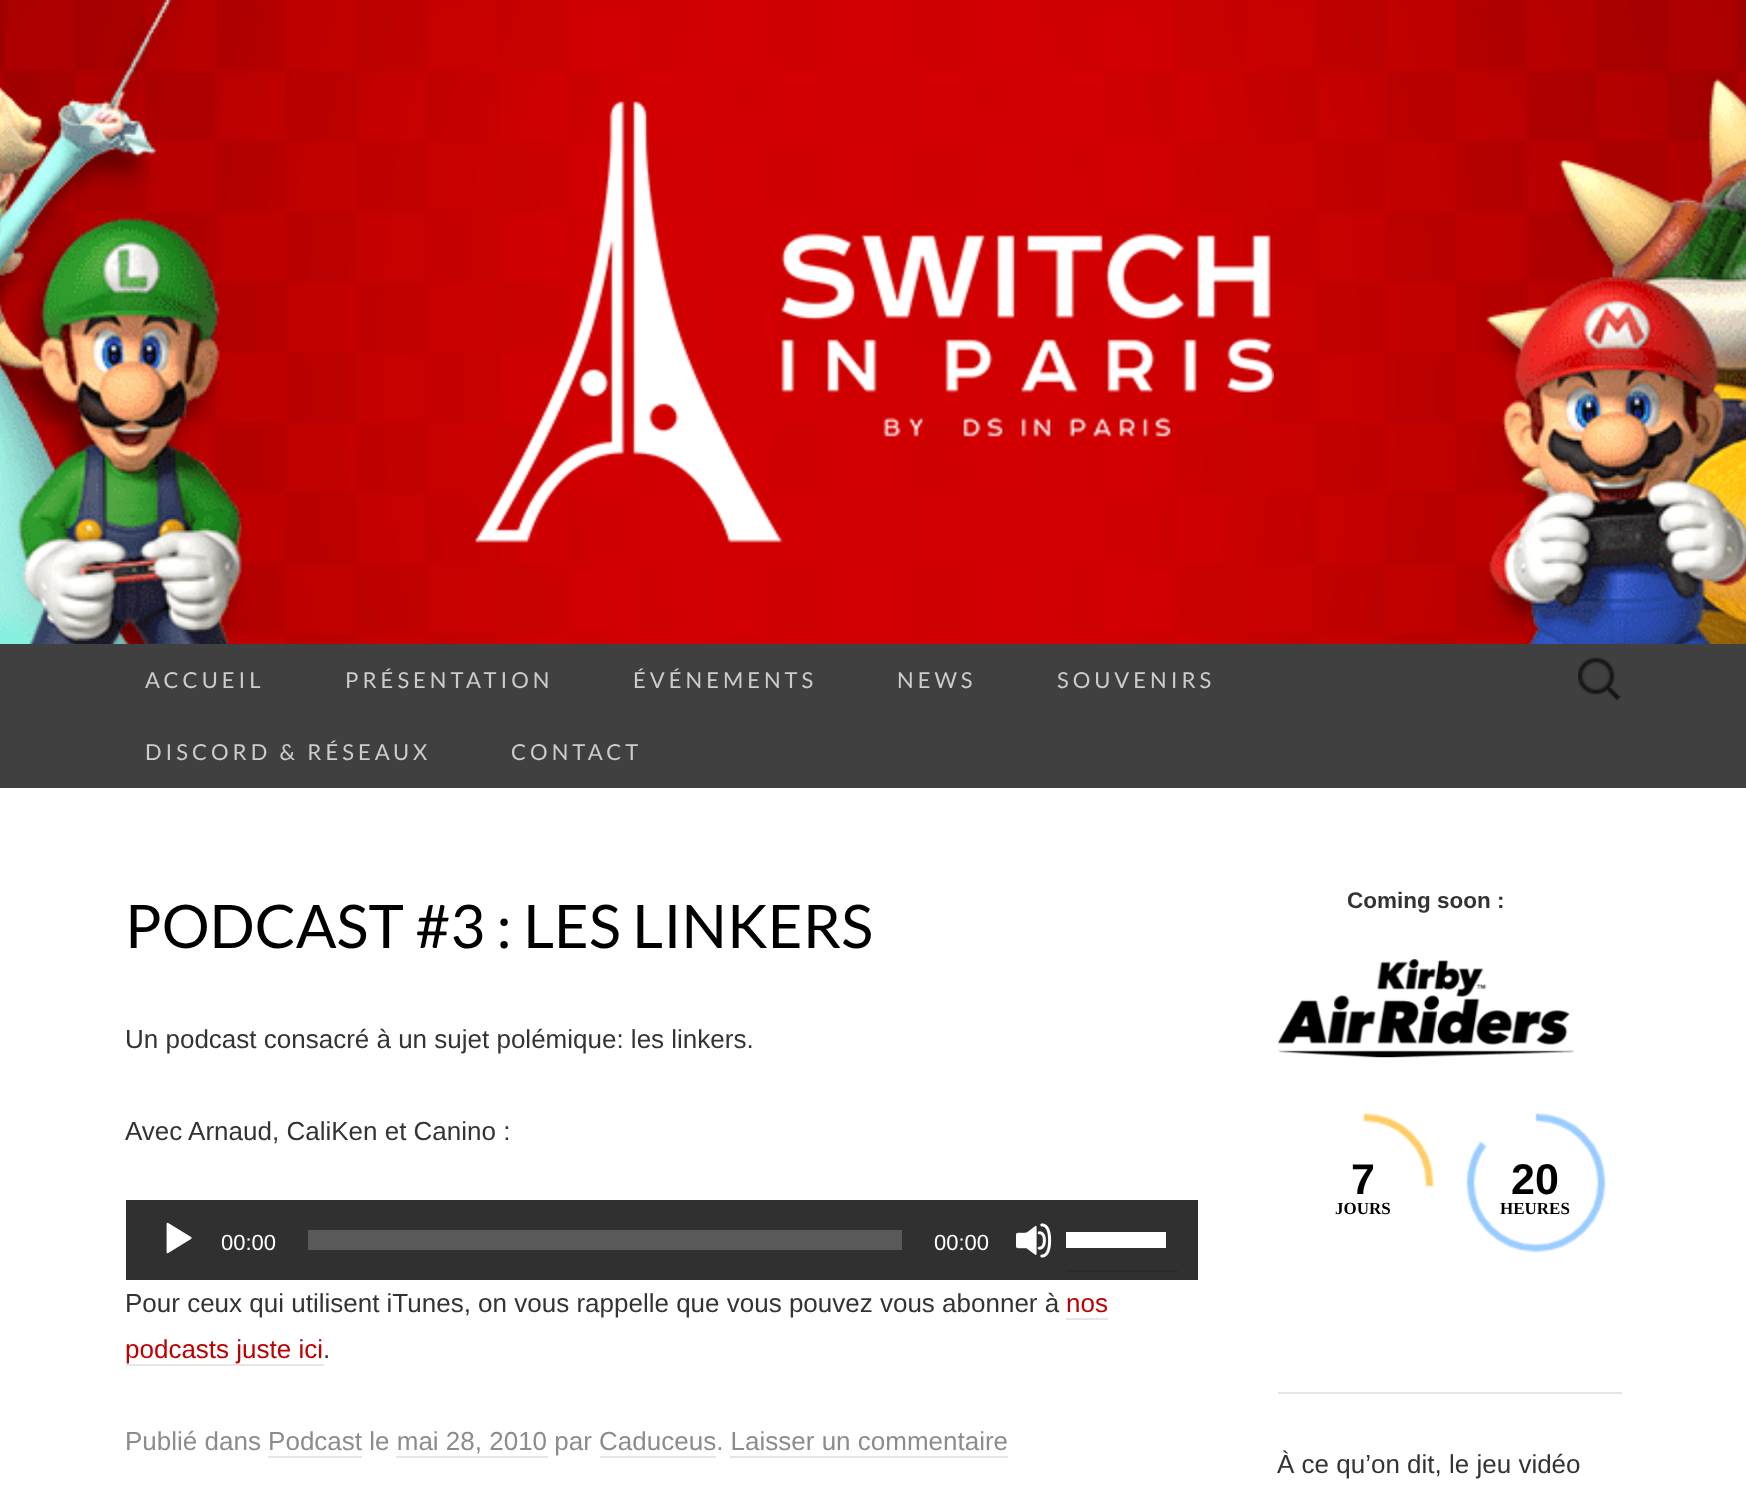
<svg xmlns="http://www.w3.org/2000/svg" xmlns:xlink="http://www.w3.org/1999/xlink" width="1746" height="1487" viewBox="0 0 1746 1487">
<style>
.cls-1{font:22px Lato;letter-spacing:4px;fill:#cccccc}
.cls-2{font:60px Lato;fill:#000000}
.cls-3{font:26px Liberation Sans;fill:#333333}
.cls-4{font:22px Liberation Sans;fill:#ffffff}
.cls-5{font:26px Liberation Sans;fill:#bb0000}
.cls-6{font:26px Liberation Sans;fill:#8c8c8c}
.cls-7{font:bold 22.5px Liberation Sans;fill:#333333}
.cls-8{font:bold 43px Liberation Sans;fill:#000000}
.cls-9{font:bold 17px Liberation Serif;fill:#000000}
</style>
<rect width="100%" height="100%" fill="#ffffff"/>
<image xlink:href="image0.png" x="0" y="0" width="1746" height="644"/>
<image xlink:href="image1.png" x="474" y="101" width="800" height="442"/>
<rect fill="#404040" x="0" y="644" width="1746" height="144"/>
<image xlink:href="image2.png" x="1578" y="657" width="43" height="44"/>
<rect fill="#303030" x="126" y="1200" width="1072" height="80"/>
<image xlink:href="image3.png" x="166" y="1222" width="26" height="32"/>
<rect fill="#595959" x="308" y="1230" width="594" height="20"/>
<image xlink:href="image4.png" x="1016" y="1223" width="36" height="35"/>
<rect fill="#2b2b2b" x="1066" y="1270" width="112" height="2"/>
<rect fill="#ffffff" x="1066" y="1232" width="100" height="16"/>
<rect fill="#e6e6e6" x="1066" y="1318" width="42" height="2"/>
<rect fill="#e6e6e6" x="126" y="1364" width="198" height="2"/>
<rect fill="#e6e6e6" x="268" y="1456" width="94" height="2"/>
<rect fill="#e6e6e6" x="396" y="1456" width="152" height="2"/>
<rect fill="#e6e6e6" x="600" y="1456" width="116" height="2"/>
<rect fill="#e6e6e6" x="730" y="1456" width="278" height="2"/>
<rect fill="#e6e6e6" x="1278" y="1392" width="344" height="2"/>
<image xlink:href="image5.png" x="1278" y="959" width="296" height="99"/>
<image xlink:href="image6.png" x="1363" y="1113" width="243" height="140"/>
<text class="cls-1" x="145" y="688">ACCUEIL</text>
<text class="cls-1" x="345" y="688">PRÉSENTATION</text>
<text class="cls-1" x="633" y="688">ÉVÉNEMENTS</text>
<text class="cls-1" x="897" y="688">NEWS</text>
<text class="cls-1" x="1057" y="688">SOUVENIRS</text>
<text class="cls-1" x="145" y="760">DISCORD &amp; RÉSEAUX</text>
<text class="cls-1" x="511" y="760">CONTACT</text>
<text class="cls-2" x="125" y="948">PODCAST #3 : LES LINKERS</text>
<text class="cls-3" x="125" y="1048">Un podcast consacré à un sujet polémique: les linkers.</text>
<text class="cls-3" x="125" y="1140">Avec Arnaud, CaliKen et Canino :</text>
<text class="cls-4" x="221" y="1250">00:00</text>
<text class="cls-4" x="934" y="1250">00:00</text>
<text class="cls-3" x="125" y="1312">Pour ceux qui utilisent iTunes, on vous rappelle que vous pouvez vous abonner à</text>
<text class="cls-5" x="1066" y="1312">nos</text>
<text class="cls-5" x="125" y="1358">podcasts juste ici</text>
<text class="cls-3" x="323" y="1358">.</text>
<text class="cls-6" x="125" y="1450">Publié dans Podcast le mai 28, 2010 par Caduceus. Laisser un commentaire</text>
<text class="cls-7" x="1347" y="908">Coming soon :</text>
<text class="cls-8" x="1351" y="1194">7</text>
<text class="cls-9" x="1335" y="1214">JOURS</text>
<text class="cls-8" x="1511" y="1194">20</text>
<text class="cls-9" x="1500" y="1214">HEURES</text>
<text class="cls-3" x="1277" y="1473">À ce qu’on dit, le jeu vidéo</text>
</svg>
